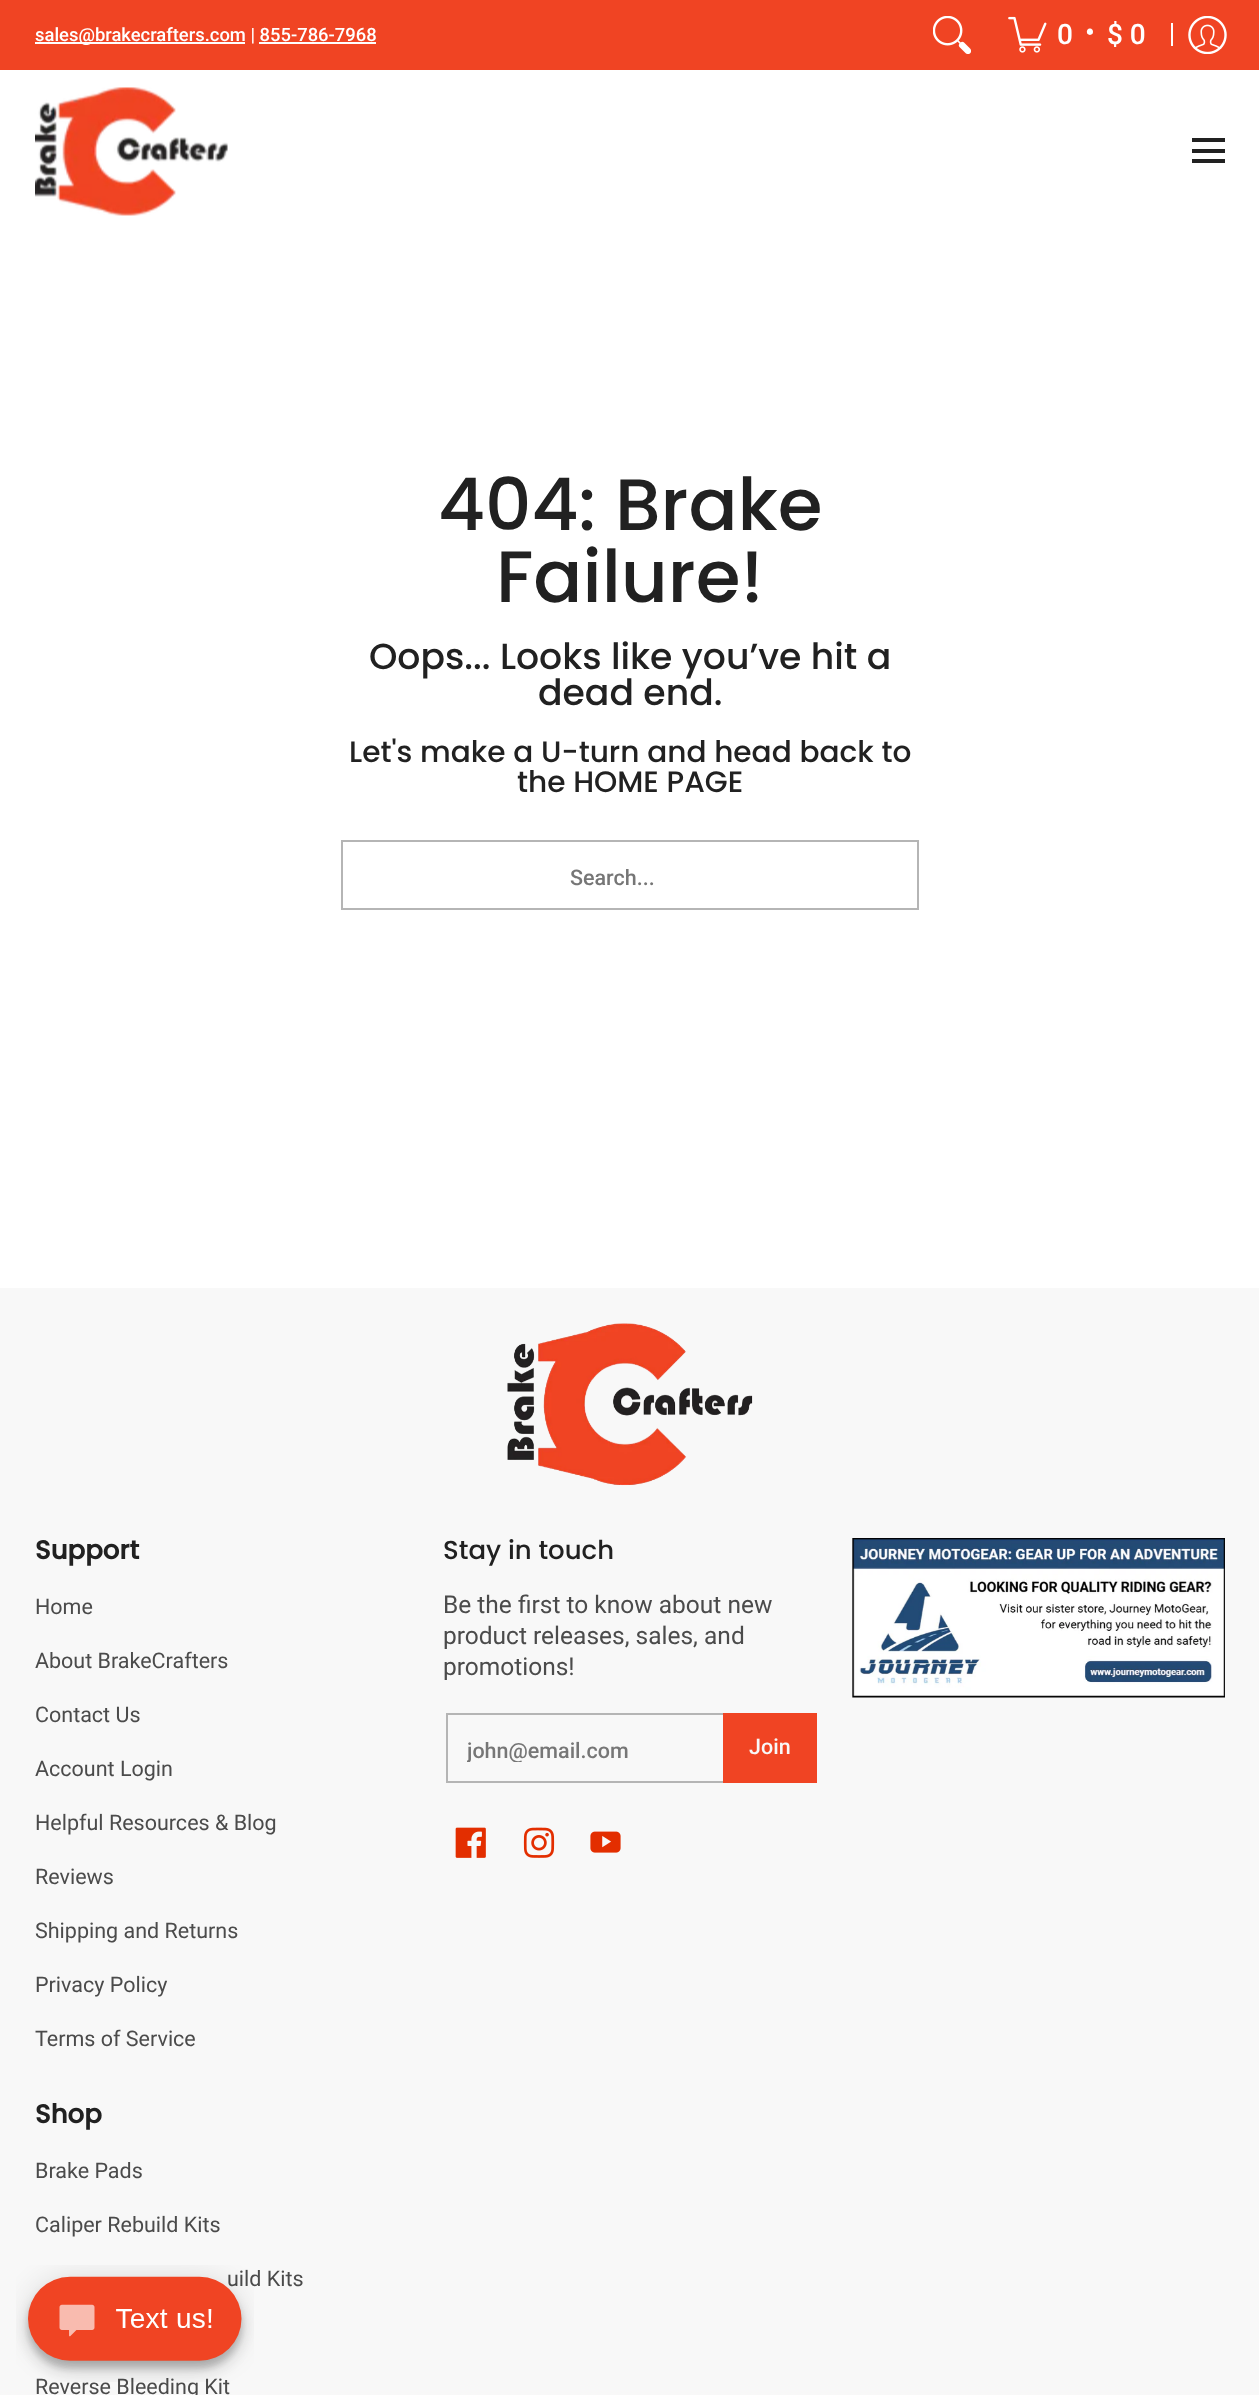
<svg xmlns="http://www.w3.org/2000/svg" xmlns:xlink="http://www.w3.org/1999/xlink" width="1259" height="2395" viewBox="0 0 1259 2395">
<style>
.cls-1{font:500 18.4px Roboto;fill:#ffffff}
.cls-2{font:500 28px Roboto;fill:#ffffff}
.cls-3{font:500 72.5px Poppins;fill:#212121}
.cls-4{font:500 36.2px Poppins;fill:#212121}
.cls-5{font:500 29.6px Poppins;fill:#212121}
.cls-6{font:500 21.5px Roboto;fill:#767676}
.cls-7{font:bold 26px Poppins;fill:#212121}
.cls-8{font:21.5px Roboto;fill:#4b4b4b}
.cls-9{font:500 26px Poppins;fill:#212121}
.cls-10{font:24.5px Roboto;fill:#4b4b4b}
.cls-11{font:500 21.5px Roboto;fill:#f8f8f8}
</style>
<defs>
<clipPath id="clip1"><rect x="467" y="1738" width="240" height="24"/></clipPath>
</defs>
<rect width="100%" height="100%" fill="#ffffff"/>
<rect fill="#f04423" x="0" y="0" width="1259" height="70"/>
<rect fill="#ffffff" x="35" y="42" width="210" height="2"/>
<rect fill="#ffffff" x="259" y="42" width="117" height="2"/>
<image xlink:href="image0.png" x="933" y="16" width="38" height="38"/>
<image xlink:href="image1.png" x="1008" y="16" width="39" height="37"/>
<rect fill="#ffffff" x="1171" y="23" width="2" height="23"/>
<image xlink:href="image2.png" x="1188" y="16" width="39" height="38"/>
<image xlink:href="image3.png" x="35" y="87" width="193" height="129"/>
<rect fill="#212121" x="1192" y="138" width="33" height="4"/>
<rect fill="#212121" x="1192" y="159" width="33" height="4"/>
<rect fill="#212121" x="1192" y="149" width="33" height="4"/>
<rect fill="none" stroke="#b5b5b5" stroke-width="2" x="342" y="841" width="576" height="68"/>
<rect fill="#f8f8f8" x="0" y="1288" width="1259" height="1107"/>
<image xlink:href="image4.png" x="507" y="1323" width="246" height="163"/>
<rect fill="none" stroke="#b5b5b5" stroke-width="2" x="447" y="1714" width="278" height="68"/>
<rect fill="#f04423" x="723" y="1713" width="94" height="70"/>
<image xlink:href="image5.png" x="455" y="1827" width="31" height="31"/>
<image xlink:href="image6.png" x="523" y="1827" width="32" height="31"/>
<image xlink:href="image7.png" x="590" y="1831" width="31" height="22"/>
<image xlink:href="image8.png" x="852" y="1538" width="373" height="160"/>
<text class="cls-1" x="35" y="41">sales@brakecrafters.com | 855-786-7968</text>
<text class="cls-2" x="1057" y="44">0</text>
<text class="cls-2" x="1085" y="42">•</text>
<text class="cls-2" x="1107" y="44">$ 0</text>
<text class="cls-3" x="438" y="530">404: Brake</text>
<text class="cls-3" x="496" y="602">Failure!</text>
<text class="cls-4" x="369" y="669">Oops... Looks like you’ve hit a</text>
<text class="cls-4" x="538" y="705">dead end.</text>
<text class="cls-5" x="349" y="762">Let's make a U-turn and head back to</text>
<text class="cls-5" x="517" y="792">the HOME PAGE</text>
<text class="cls-6" x="570" y="885">Search...</text>
<text class="cls-7" x="35" y="1559">Support</text>
<text class="cls-8" x="35" y="1614">Home</text>
<text class="cls-8" x="35" y="1668">About BrakeCrafters</text>
<text class="cls-8" x="35" y="1722">Contact Us</text>
<text class="cls-8" x="35" y="1776">Account Login</text>
<text class="cls-8" x="35" y="1830">Helpful Resources &amp; Blog</text>
<text class="cls-8" x="35" y="1884">Reviews</text>
<text class="cls-8" x="35" y="1938">Shipping and Returns</text>
<text class="cls-8" x="35" y="1992">Privacy Policy</text>
<text class="cls-8" x="35" y="2046">Terms of Service</text>
<text class="cls-7" x="35" y="2123">Shop</text>
<text class="cls-8" x="35" y="2178">Brake Pads</text>
<text class="cls-8" x="35" y="2232">Caliper Rebuild Kits</text>
<text class="cls-8" x="227" y="2286">uild Kits</text>
<text class="cls-8" x="35" y="2394">Reverse Bleeding Kit</text>
<text class="cls-9" x="443" y="1559">Stay in touch</text>
<text class="cls-10"><tspan x="443" y="1613">Be the first to know about new</tspan><tspan x="443" y="1644">product releases, sales, and</tspan><tspan x="443" y="1675">promotions!</tspan></text>
<g clip-path="url(#clip1)">
<text class="cls-6" x="467" y="1758">john@email.com</text>
</g>
<text class="cls-11" x="749" y="1754">Join</text>
<image xlink:href="image9.png" x="16" y="2265" width="238" height="117"/>
</svg>
